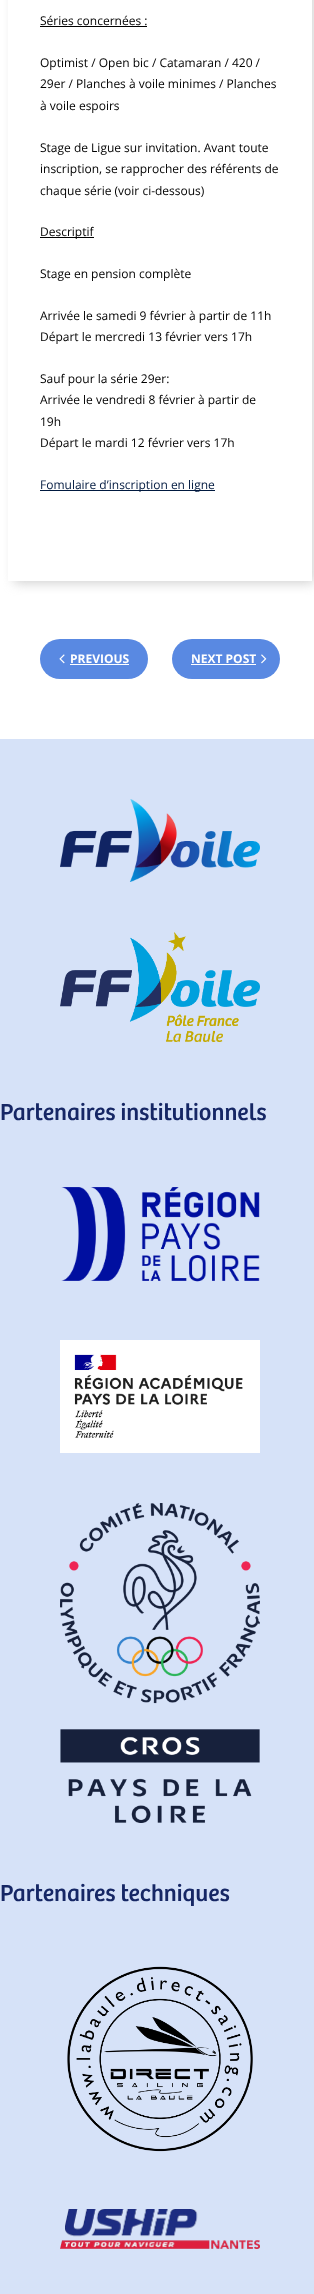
<svg xmlns="http://www.w3.org/2000/svg" xmlns:xlink="http://www.w3.org/1999/xlink" width="314" height="2294" viewBox="0 0 314 2294">
<style>
.cls-1{font:12px Open Sans;fill:#000000}
.cls-2{font:12px Open Sans;fill:#00193f}
.cls-3{font:bold 12px Open Sans;fill:#ffffff}
.cls-4{font:24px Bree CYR;fill:#162765}
</style>
<defs>
<clipPath id="clip1"><path d="M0 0H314V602H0ZM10-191H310V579H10Z" clip-rule="evenodd"/></clipPath>
</defs>
<rect width="100%" height="100%" fill="#ffffff"/>
<g clip-path="url(#clip1)">
<rect fill="#afafaf" fill-opacity="0.6" filter="blur(6px)" x="14" y="-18" width="300" height="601"/>
</g>
<rect fill="none" stroke="#ffffff" stroke-width="2" x="9" y="-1" width="302" height="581"/>
<rect fill="#000000" x="40" y="26" width="107" height="1"/>
<rect fill="#000000" x="40" y="237" width="54" height="1"/>
<rect fill="#00193f" x="40" y="490" width="175" height="1"/>
<rect fill="#5989e2" x="40" y="639" width="108" height="40" rx="20"/>
<image xlink:href="image0.png" x="59" y="654" width="6" height="10"/>
<rect fill="#ffffff" x="70" y="664" width="59" height="1"/>
<rect fill="#5989e2" x="172" y="639" width="108" height="40" rx="20"/>
<rect fill="#ffffff" x="191" y="664" width="65" height="1"/>
<image xlink:href="image1.png" x="261" y="654" width="6" height="10"/>
<rect fill="#d6e2f8" x="0" y="739" width="314" height="1555"/>
<image xlink:href="image2.png" x="60" y="799" width="200" height="83"/>
<image xlink:href="image3.png" x="60" y="932" width="200" height="110"/>
<image xlink:href="image4.png" x="61" y="1187" width="199" height="95"/>
<image xlink:href="image5.png" x="60" y="1340" width="200" height="113"/>
<image xlink:href="image6.png" x="60" y="1503" width="200" height="320"/>
<image xlink:href="image7.png" x="67" y="1966" width="186" height="186"/>
<image xlink:href="image8.png" x="60" y="2209" width="200" height="40"/>
<text class="cls-1" x="40" y="25">Séries concernées :</text>
<text class="cls-1"><tspan x="40" y="67">Optimist / Open bic / Catamaran / 420 /</tspan><tspan x="40" y="88">29er / Planches à voile minimes / Planches</tspan><tspan x="40" y="110">à voile espoirs</tspan></text>
<text class="cls-1"><tspan x="40" y="152">Stage de Ligue sur invitation. Avant toute</tspan><tspan x="40" y="173">inscription, se rapprocher des référents de</tspan><tspan x="40" y="195">chaque série (voir ci-dessous)</tspan></text>
<text class="cls-1" x="40" y="236">Descriptif</text>
<text class="cls-1" x="40" y="278">Stage en pension complète</text>
<text class="cls-1"><tspan x="40" y="320">Arrivée le samedi 9 février à partir de 11h</tspan><tspan x="40" y="341">Départ le mercredi 13 février vers 17h</tspan></text>
<text class="cls-1"><tspan x="40" y="383">Sauf pour la série 29er:</tspan><tspan x="40" y="404">Arrivée le vendredi 8 février à partir de</tspan><tspan x="40" y="426">19h</tspan><tspan x="40" y="447">Départ le mardi 12 février vers 17h</tspan></text>
<text class="cls-2" x="40" y="489">Fomulaire d’inscription en ligne</text>
<text class="cls-3" x="70" y="663">PREVIOUS</text>
<text class="cls-3" x="191" y="663">NEXT POST</text>
<text class="cls-4" x="0" y="1120">Partenaires institutionnels</text>
<text class="cls-4" x="0" y="1901">Partenaires techniques</text>
</svg>
